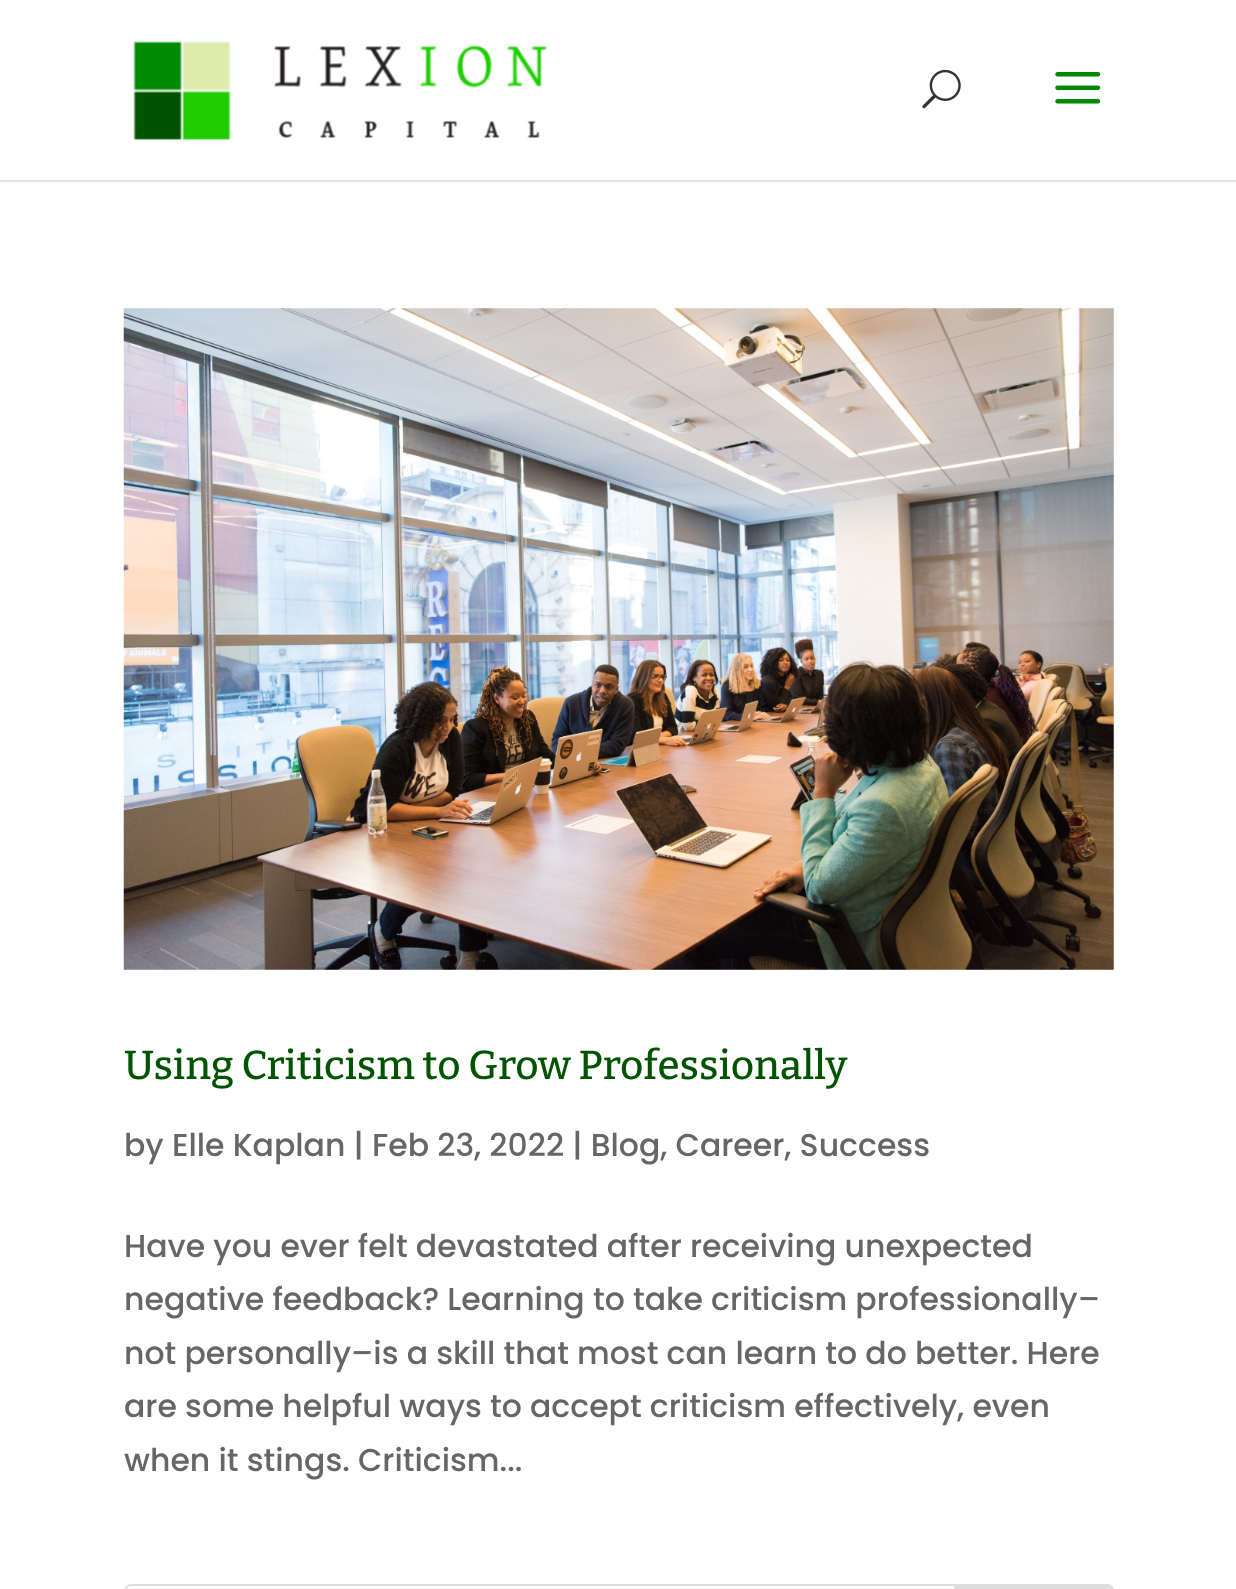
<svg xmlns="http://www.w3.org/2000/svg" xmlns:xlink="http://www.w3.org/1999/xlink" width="1236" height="1589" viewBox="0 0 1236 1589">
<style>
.cls-1{font:500 40.5px Bitter;fill:#005400}
.cls-2{font:500 31.5px Poppins;fill:#666666}
</style>
<rect width="100%" height="100%" fill="#ffffff"/>
<path fill="#e6e6e6" d="M0 180V182H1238V2V180Z"/>
<image xlink:href="image0.png" x="133" y="41" width="415" height="99"/>
<image xlink:href="image1.png" x="922" y="69" width="39" height="40"/>
<image xlink:href="image2.png" x="1055" y="72" width="46" height="32"/>
<image xlink:href="image3.png" x="123" y="308" width="991" height="662"/>
<rect fill="none" stroke="#dddddd" stroke-width="2" x="125" y="1585" width="988" height="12" rx="6"/>
<path fill="#dddddd" stroke="#dddddd" stroke-width="2" d="M955 1585H1107C1110.5 1585 1113 1587.5 1113 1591C1113 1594.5 1110.5 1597 1107 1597H955Z"/>
<text class="cls-1" x="124" y="1079">Using Criticism to Grow Professionally</text>
<text class="cls-2" x="124" y="1156">by Elle Kaplan | Feb 23, 2022 | Blog, Career, Success</text>
<text class="cls-2"><tspan x="124" y="1257">Have you ever felt devastated after receiving unexpected</tspan><tspan x="124" y="1310">negative feedback? Learning to take criticism professionally–</tspan><tspan x="124" y="1364">not personally–is a skill that most can learn to do better. Here</tspan><tspan x="124" y="1417">are some helpful ways to accept criticism effectively, even</tspan><tspan x="124" y="1471">when it stings. Criticism...</tspan></text>
</svg>
